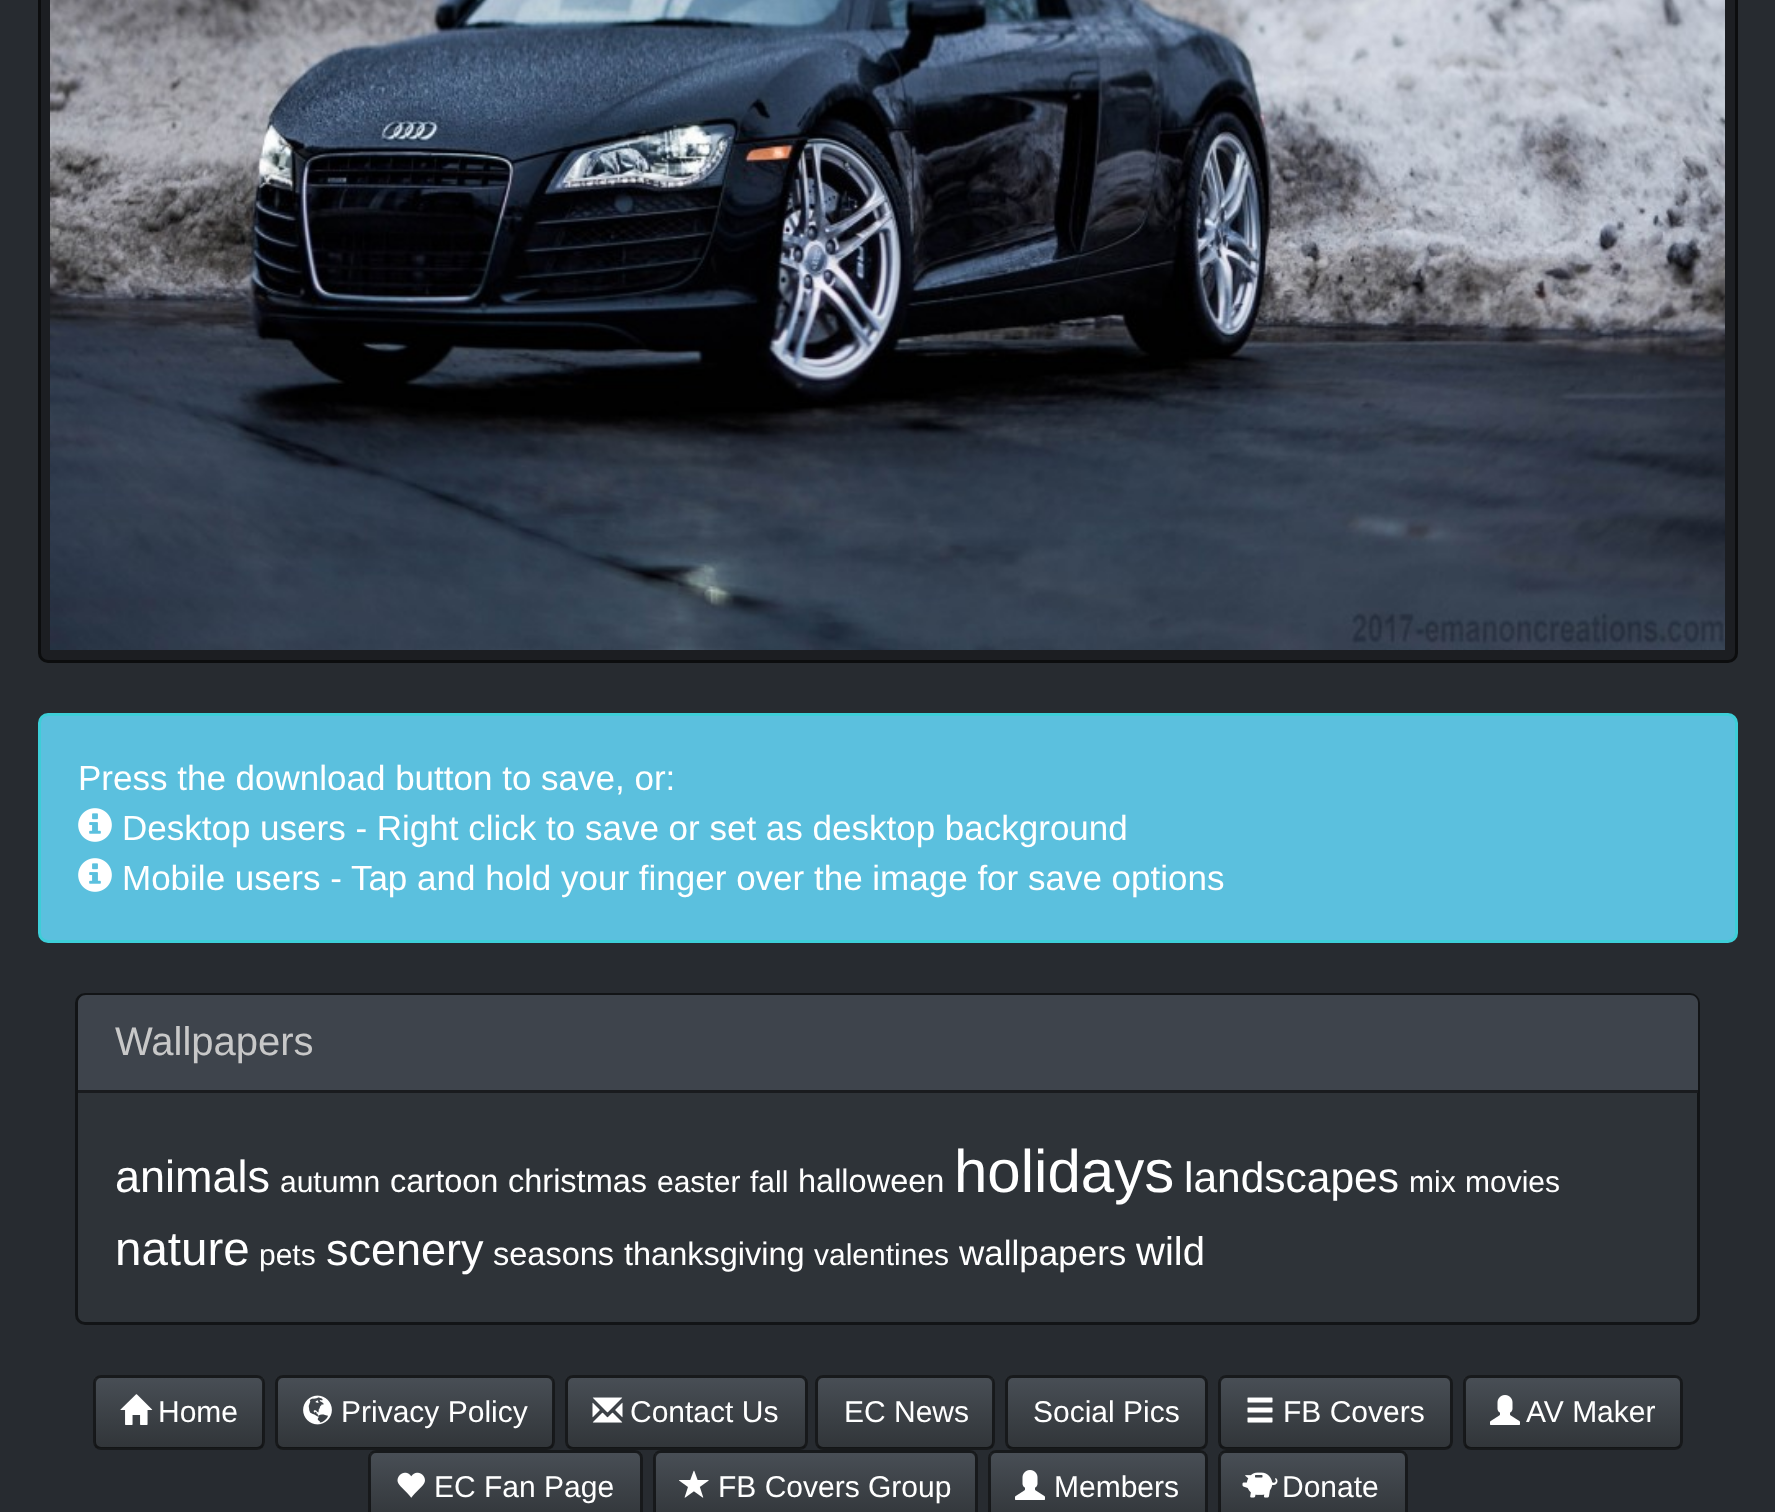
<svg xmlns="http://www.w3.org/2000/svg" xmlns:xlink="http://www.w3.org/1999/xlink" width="1775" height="1512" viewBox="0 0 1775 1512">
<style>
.cls-1{font:35px Liberation Sans;fill:#ffffff}
.cls-2{font:40px Liberation Sans;fill:#c8c8c8}
.cls-3{font:45px Liberation Sans;fill:#ffffff}
.cls-4{font:30px Liberation Sans;fill:#ffffff}
.cls-5{font:32.5px Liberation Sans;fill:#ffffff}
.cls-6{font:60px Liberation Sans;fill:#ffffff}
.cls-7{font:42.5px Liberation Sans;fill:#ffffff}
.cls-8{font:47.5px Liberation Sans;fill:#ffffff}
.cls-9{font:40px Liberation Sans;fill:#ffffff}
</style>
<defs>
<linearGradient id="g1" gradientUnits="userSpaceOnUse" x1="179" y1="1378" x2="179" y2="1448"><stop offset="0" stop-color="#484e55"/><stop offset="0.6" stop-color="#3a3f44"/><stop offset="1" stop-color="#313539"/></linearGradient>
<linearGradient id="g2" gradientUnits="userSpaceOnUse" x1="415" y1="1378" x2="415" y2="1448"><stop offset="0" stop-color="#484e55"/><stop offset="0.6" stop-color="#3a3f44"/><stop offset="1" stop-color="#313539"/></linearGradient>
<linearGradient id="g3" gradientUnits="userSpaceOnUse" x1="686" y1="1378" x2="686" y2="1448"><stop offset="0" stop-color="#484e55"/><stop offset="0.6" stop-color="#3a3f44"/><stop offset="1" stop-color="#313539"/></linearGradient>
<linearGradient id="g4" gradientUnits="userSpaceOnUse" x1="905" y1="1378" x2="905" y2="1448"><stop offset="0" stop-color="#484e55"/><stop offset="0.6" stop-color="#3a3f44"/><stop offset="1" stop-color="#313539"/></linearGradient>
<linearGradient id="g5" gradientUnits="userSpaceOnUse" x1="1106" y1="1378" x2="1106" y2="1448"><stop offset="0" stop-color="#484e55"/><stop offset="0.6" stop-color="#3a3f44"/><stop offset="1" stop-color="#313539"/></linearGradient>
<linearGradient id="g6" gradientUnits="userSpaceOnUse" x1="1335" y1="1378" x2="1335" y2="1448"><stop offset="0" stop-color="#484e55"/><stop offset="0.6" stop-color="#3a3f44"/><stop offset="1" stop-color="#313539"/></linearGradient>
<linearGradient id="g7" gradientUnits="userSpaceOnUse" x1="1573" y1="1378" x2="1573" y2="1448"><stop offset="0" stop-color="#484e55"/><stop offset="0.6" stop-color="#3a3f44"/><stop offset="1" stop-color="#313539"/></linearGradient>
<linearGradient id="g8" gradientUnits="userSpaceOnUse" x1="505" y1="1453" x2="505" y2="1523"><stop offset="0" stop-color="#484e55"/><stop offset="0.6" stop-color="#3a3f44"/><stop offset="1" stop-color="#313539"/></linearGradient>
<linearGradient id="g9" gradientUnits="userSpaceOnUse" x1="815" y1="1453" x2="815" y2="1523"><stop offset="0" stop-color="#484e55"/><stop offset="0.6" stop-color="#3a3f44"/><stop offset="1" stop-color="#313539"/></linearGradient>
<linearGradient id="g10" gradientUnits="userSpaceOnUse" x1="1098" y1="1453" x2="1098" y2="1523"><stop offset="0" stop-color="#484e55"/><stop offset="0.6" stop-color="#3a3f44"/><stop offset="1" stop-color="#313539"/></linearGradient>
<linearGradient id="g11" gradientUnits="userSpaceOnUse" x1="1313" y1="1453" x2="1313" y2="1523"><stop offset="0" stop-color="#484e55"/><stop offset="0.6" stop-color="#3a3f44"/><stop offset="1" stop-color="#313539"/></linearGradient>
</defs>
<rect width="100%" height="100%" fill="#272b30"/>
<rect fill="#1c1e22" stroke="#0c0d0e" stroke-width="3" x="39.5" y="-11.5" width="1697" height="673" rx="8.5"/>
<image xlink:href="image0.png" x="50" y="0" width="1675" height="650"/>
<rect fill="#5bc0de" stroke="#3dced8" stroke-width="3" x="39.5" y="714.5" width="1697" height="227" rx="8.5"/>
<image xlink:href="image1.png" x="78" y="808" width="34" height="34"/>
<image xlink:href="image1.png" x="78" y="858" width="34" height="34"/>
<rect fill="#2e3338" x="75" y="993" width="1625" height="332" rx="10"/>
<rect fill="none" stroke="#000000" stroke-opacity="0.6" stroke-width="3" x="76.5" y="994.5" width="1622" height="329" rx="8.5"/>
<path fill="#3e444c" d="M86 995H1690C1694.5 995 1698 998.5 1698 1003V1093H78V1003C78 998.5 81.5 995 86 995Z"/>
<rect fill="#191b1e" x="78" y="1090" width="1620" height="3"/>
<rect fill="#3a3f44" x="93" y="1375" width="172" height="75" rx="8"/>
<rect fill="url(#g1)" x="95" y="1378" width="168" height="70"/>
<rect fill="none" stroke="#000000" stroke-opacity="0.6" stroke-width="3" x="94.5" y="1376.5" width="169" height="72" rx="6.5"/>
<image xlink:href="image2.png" x="120" y="1394" width="33" height="31"/>
<rect fill="#3a3f44" x="275" y="1375" width="280" height="75" rx="8"/>
<rect fill="url(#g2)" x="278" y="1378" width="275" height="70"/>
<rect fill="none" stroke="#000000" stroke-opacity="0.6" stroke-width="3" x="276.5" y="1376.5" width="277" height="72" rx="6.5"/>
<image xlink:href="image3.png" x="303" y="1395" width="29" height="30"/>
<rect fill="#3a3f44" x="565" y="1375" width="243" height="75" rx="8"/>
<rect fill="url(#g3)" x="568" y="1378" width="237" height="70"/>
<rect fill="none" stroke="#000000" stroke-opacity="0.6" stroke-width="3" x="566.5" y="1376.5" width="240" height="72" rx="6.5"/>
<image xlink:href="image4.png" x="592" y="1397" width="31" height="26"/>
<rect fill="#3a3f44" x="815" y="1375" width="180" height="75" rx="8"/>
<rect fill="url(#g4)" x="818" y="1378" width="175" height="70"/>
<rect fill="none" stroke="#000000" stroke-opacity="0.6" stroke-width="3" x="816.5" y="1376.5" width="177" height="72" rx="6.5"/>
<rect fill="#3a3f44" x="1005" y="1375" width="203" height="75" rx="8"/>
<rect fill="url(#g5)" x="1008" y="1378" width="197" height="70"/>
<rect fill="none" stroke="#000000" stroke-opacity="0.6" stroke-width="3" x="1006.5" y="1376.5" width="200" height="72" rx="6.5"/>
<rect fill="#3a3f44" x="1218" y="1375" width="235" height="75" rx="8"/>
<rect fill="url(#g6)" x="1220" y="1378" width="230" height="70"/>
<rect fill="none" stroke="#000000" stroke-opacity="0.6" stroke-width="3" x="1219.5" y="1376.5" width="232" height="72" rx="6.5"/>
<image xlink:href="image5.png" x="1247" y="1397" width="26" height="26"/>
<rect fill="#3a3f44" x="1463" y="1375" width="220" height="75" rx="8"/>
<rect fill="url(#g7)" x="1465" y="1378" width="215" height="70"/>
<rect fill="none" stroke="#000000" stroke-opacity="0.6" stroke-width="3" x="1464.5" y="1376.5" width="217" height="72" rx="6.5"/>
<image xlink:href="image6.png" x="1490" y="1395" width="30" height="30"/>
<rect fill="#3a3f44" x="368" y="1450" width="275" height="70" rx="8"/>
<rect fill="url(#g8)" x="370" y="1453" width="270" height="59"/>
<rect fill="none" stroke="#000000" stroke-opacity="0.6" stroke-width="3" x="369.5" y="1451.5" width="272" height="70" rx="6.5"/>
<image xlink:href="image7.png" x="397" y="1472" width="28" height="26"/>
<rect fill="#3a3f44" x="653" y="1450" width="325" height="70" rx="8"/>
<rect fill="url(#g9)" x="655" y="1453" width="320" height="59"/>
<rect fill="none" stroke="#000000" stroke-opacity="0.6" stroke-width="3" x="654.5" y="1451.5" width="322" height="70" rx="6.5"/>
<image xlink:href="image8.png" x="679" y="1470" width="30" height="28"/>
<rect fill="#3a3f44" x="988" y="1450" width="220" height="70" rx="8"/>
<rect fill="url(#g10)" x="990" y="1453" width="215" height="59"/>
<rect fill="none" stroke="#000000" stroke-opacity="0.6" stroke-width="3" x="989.5" y="1451.5" width="217" height="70" rx="6.5"/>
<image xlink:href="image6.png" x="1015" y="1470" width="30" height="30"/>
<rect fill="#3a3f44" x="1218" y="1450" width="190" height="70" rx="8"/>
<rect fill="url(#g11)" x="1220" y="1453" width="185" height="59"/>
<rect fill="none" stroke="#000000" stroke-opacity="0.6" stroke-width="3" x="1219.5" y="1451.5" width="187" height="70" rx="6.5"/>
<image xlink:href="image9.png" x="1242" y="1472" width="36" height="26"/>
<text class="cls-1" x="78" y="790">Press the download button to save, or:</text>
<text class="cls-1"><tspan x="122" y="840">Desktop users - Right click to save or set as desktop background</tspan><tspan x="122" y="890">Mobile users - Tap and hold your finger over the image for save options</tspan></text>
<text class="cls-2" x="115" y="1055">Wallpapers</text>
<text class="cls-3" x="115" y="1192">animals</text>
<text class="cls-4" x="280" y="1192">autumn</text>
<text class="cls-5" x="390" y="1192">cartoon</text>
<text class="cls-5" x="508" y="1192">christmas</text>
<text class="cls-4" x="657" y="1192">easter</text>
<text class="cls-4" x="750" y="1192">fall</text>
<text class="cls-5" x="798" y="1192">halloween</text>
<text class="cls-6" x="954" y="1192">holidays</text>
<text class="cls-7" x="1184" y="1192">landscapes</text>
<text class="cls-4" x="1409" y="1192">mix</text>
<text class="cls-4" x="1465" y="1192">movies</text>
<text class="cls-8" x="115" y="1265">nature</text>
<text class="cls-4" x="259" y="1265">pets</text>
<text class="cls-3" x="326" y="1265">scenery</text>
<text class="cls-5" x="493" y="1265">seasons</text>
<text class="cls-5" x="624" y="1265">thanksgiving</text>
<text class="cls-4" x="814" y="1265">valentines</text>
<text class="cls-1" x="959" y="1265">wallpapers</text>
<text class="cls-9" x="1136" y="1265">wild</text>
<text class="cls-4" x="158" y="1422">Home</text>
<text class="cls-4" x="341" y="1422">Privacy Policy</text>
<text class="cls-4" x="630" y="1422">Contact Us</text>
<text class="cls-4" x="844" y="1422">EC News</text>
<text class="cls-4" x="1033" y="1422">Social Pics</text>
<text class="cls-4" x="1283" y="1422">FB Covers</text>
<text class="cls-4" x="1526" y="1422">AV Maker</text>
<text class="cls-4" x="434" y="1497">EC Fan Page</text>
<text class="cls-4" x="718" y="1497">FB Covers Group</text>
<text class="cls-4" x="1054" y="1497">Members</text>
<text class="cls-4" x="1282" y="1497">Donate</text>
</svg>
